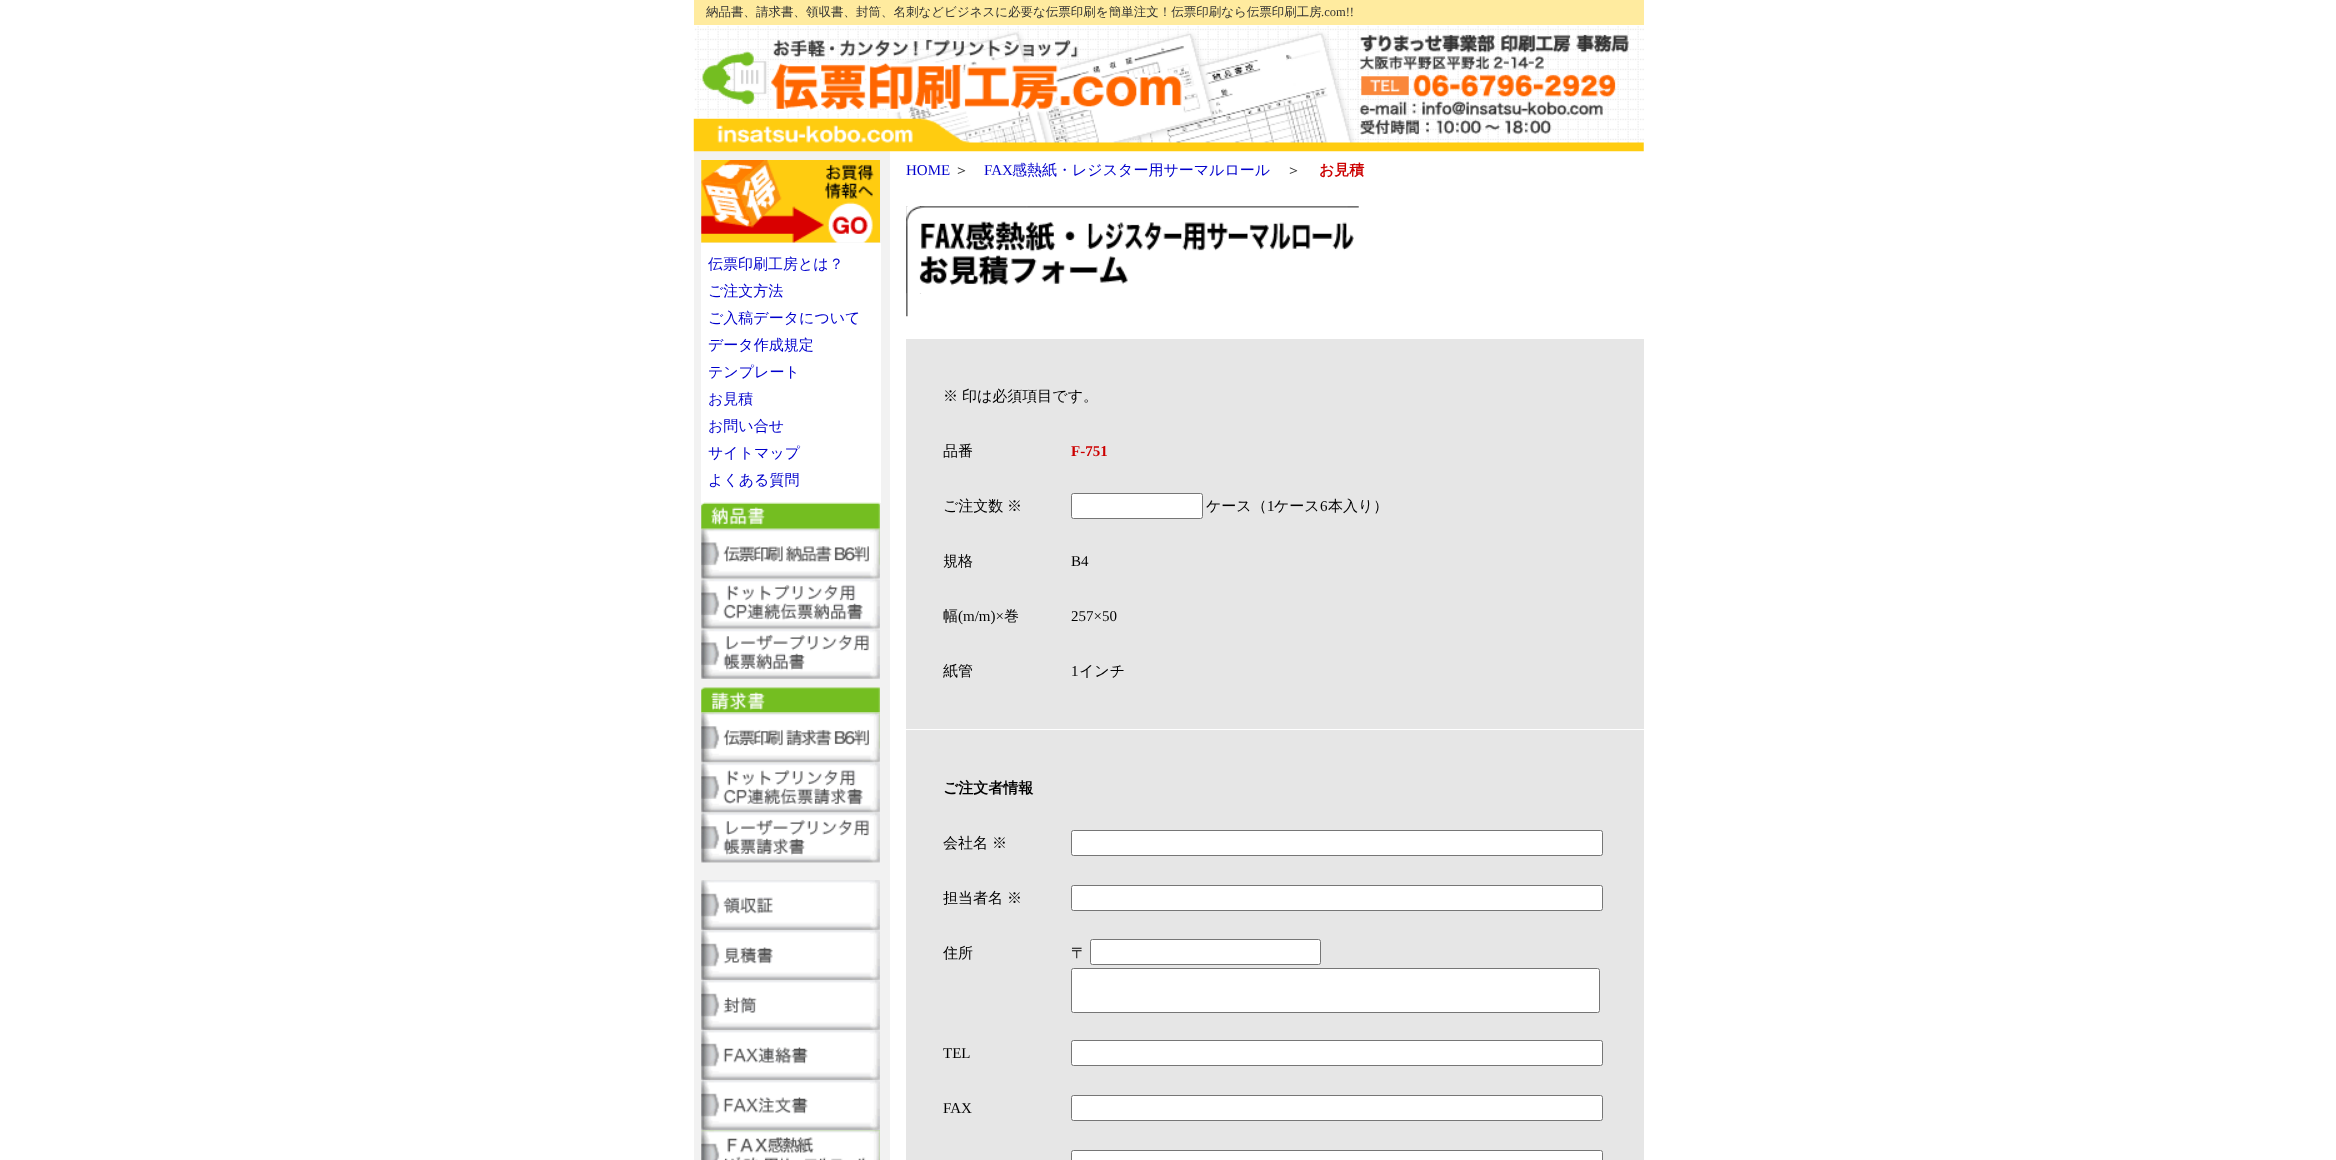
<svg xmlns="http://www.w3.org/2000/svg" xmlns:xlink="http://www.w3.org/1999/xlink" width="2336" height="1160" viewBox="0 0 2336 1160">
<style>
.cls-1{font:500 12.5px WenQuanYi Zen Hei;fill:#333333}
.cls-2{font:12.5px Liberation Serif;fill:#333333}
.cls-3{font:500 15px WenQuanYi Zen Hei;fill:#0000cc}
.cls-4{font:15px Liberation Serif;fill:#0000cc}
.cls-5{font:500 15px WenQuanYi Zen Hei;fill:#333333}
.cls-6{font:bold 15px WenQuanYi Zen Hei;fill:#cc0000}
.cls-7{font:500 15px WenQuanYi Zen Hei;fill:#000000}
.cls-8{font:bold 15px Liberation Serif;fill:#cc0000}
.cls-9{font:15px Liberation Serif;fill:#000000}
.cls-10{font:bold 15px WenQuanYi Zen Hei;fill:#000000}
</style>
<rect width="100%" height="100%" fill="#ffffff"/>
<rect fill="#ffeb9f" x="694" y="0" width="950" height="25"/>
<rect fill="#f2f2f2" x="694" y="151" width="196" height="1009"/>
<image xlink:href="image0.png" x="693" y="26" width="662" height="126"/>
<image xlink:href="image1.png" x="1355" y="26" width="289" height="126"/>
<image xlink:href="image2.png" x="701" y="160" width="179" height="83"/>
<rect fill="#ffffff" x="701" y="243" width="180" height="260"/>
<image xlink:href="image3.png" x="701" y="502" width="179" height="27"/>
<image xlink:href="image4.png" x="701" y="528" width="179" height="51"/>
<image xlink:href="image5.png" x="701" y="578" width="179" height="51"/>
<image xlink:href="image6.png" x="701" y="628" width="179" height="51"/>
<image xlink:href="image7.png" x="701" y="687" width="179" height="26"/>
<image xlink:href="image8.png" x="701" y="712" width="179" height="51"/>
<image xlink:href="image9.png" x="701" y="762" width="179" height="51"/>
<image xlink:href="image10.png" x="701" y="812" width="179" height="51"/>
<image xlink:href="image11.png" x="701" y="880" width="179" height="50"/>
<image xlink:href="image12.png" x="701" y="930" width="179" height="50"/>
<image xlink:href="image13.png" x="701" y="980" width="179" height="50"/>
<image xlink:href="image14.png" x="701" y="1030" width="179" height="50"/>
<image xlink:href="image15.png" x="701" y="1080" width="179" height="50"/>
<image xlink:href="image16.png" x="701" y="1130" width="179" height="30"/>
<image xlink:href="image17.png" x="906" y="206" width="16" height="88"/>
<image xlink:href="image19.png" x="906" y="293" width="2" height="24"/>
<image xlink:href="image18.png" x="906" y="206" width="453" height="88"/>
<rect fill="#e6e6e6" x="906" y="339" width="738" height="821"/>
<rect fill="#ffffff" stroke="#767676" x="1071.5" y="493.5" width="131" height="25" rx="2"/>
<rect fill="#ffffff" x="906" y="729" width="738" height="1"/>
<rect fill="#ffffff" stroke="#767676" x="1071.5" y="830.5" width="531" height="25" rx="2"/>
<rect fill="#ffffff" stroke="#767676" x="1071.5" y="885.5" width="531" height="25" rx="2"/>
<rect fill="#ffffff" stroke="#767676" x="1090.5" y="939.5" width="230" height="25" rx="2"/>
<rect fill="#ffffff" stroke="#767676" x="1071.5" y="968.5" width="528" height="44" rx="2"/>
<rect fill="#ffffff" stroke="#767676" x="1071.5" y="1040.5" width="531" height="25" rx="2"/>
<rect fill="#ffffff" stroke="#767676" x="1071.5" y="1095.5" width="531" height="25" rx="2"/>
<rect fill="#ffffff" stroke="#767676" x="1071.5" y="1150.5" width="531" height="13" rx="2"/>
<text class="cls-1" x="706" y="16">納品書、請求書、領収書、封筒、名刺などビジネスに必要な伝票印刷を簡単注文！伝票印刷なら伝票印刷工房</text>
<text class="cls-2" x="1321" y="16">.com!!</text>
<text class="cls-3"><tspan x="708" y="269">伝票印刷工房とは？</tspan><tspan x="708" y="296">ご注文方法</tspan><tspan x="708" y="323">ご入稿データについて</tspan><tspan x="708" y="350">データ作成規定</tspan><tspan x="708" y="377">テンプレート</tspan><tspan x="708" y="404">お見積</tspan><tspan x="708" y="431">お問い合せ</tspan><tspan x="708" y="458">サイトマップ</tspan><tspan x="708" y="485">よくある質問</tspan></text>
<text class="cls-4" x="906" y="175">HOME</text>
<text class="cls-5" x="954" y="175">＞</text>
<text class="cls-4" x="984" y="175">FAX</text>
<text class="cls-3" x="1012" y="175">感熱紙・レジスター用サーマルロール</text>
<text class="cls-5" x="1286" y="175">＞</text>
<text class="cls-6" x="1319" y="175">お見積</text>
<text class="cls-7" x="943" y="401">※</text>
<text class="cls-7" x="962" y="401">印は必須項目です。</text>
<text class="cls-7" x="943" y="456">品番</text>
<text class="cls-8" x="1071" y="456">F-751</text>
<text class="cls-7" x="943" y="511">ご注文数</text>
<text class="cls-7" x="1007" y="511">※</text>
<text class="cls-7" x="1206" y="511">ケース（</text>
<text class="cls-9" x="1267" y="511">1</text>
<text class="cls-7" x="1274" y="511">ケース</text>
<text class="cls-9" x="1320" y="511">6</text>
<text class="cls-7" x="1328" y="511">本入り）</text>
<text class="cls-7" x="943" y="566">規格</text>
<text class="cls-9" x="1071" y="566">B4</text>
<text class="cls-7" x="943" y="621">幅</text>
<text class="cls-9" x="958" y="621">(m/m)×</text>
<text class="cls-7" x="1004" y="621">巻</text>
<text class="cls-9" x="1071" y="621">257×50</text>
<text class="cls-7" x="943" y="676">紙管</text>
<text class="cls-9" x="1071" y="676">1</text>
<text class="cls-7" x="1079" y="676">インチ</text>
<text class="cls-10" x="943" y="793">ご注文者情報</text>
<text class="cls-7" x="943" y="848">会社名</text>
<text class="cls-7" x="992" y="848">※</text>
<text class="cls-7" x="943" y="903">担当者名</text>
<text class="cls-7" x="1007" y="903">※</text>
<text class="cls-7" x="943" y="958">住所</text>
<text class="cls-7" x="1071" y="958">〒</text>
<text class="cls-9" x="943" y="1058">TEL</text>
<text class="cls-9" x="943" y="1113">FAX</text>
</svg>
